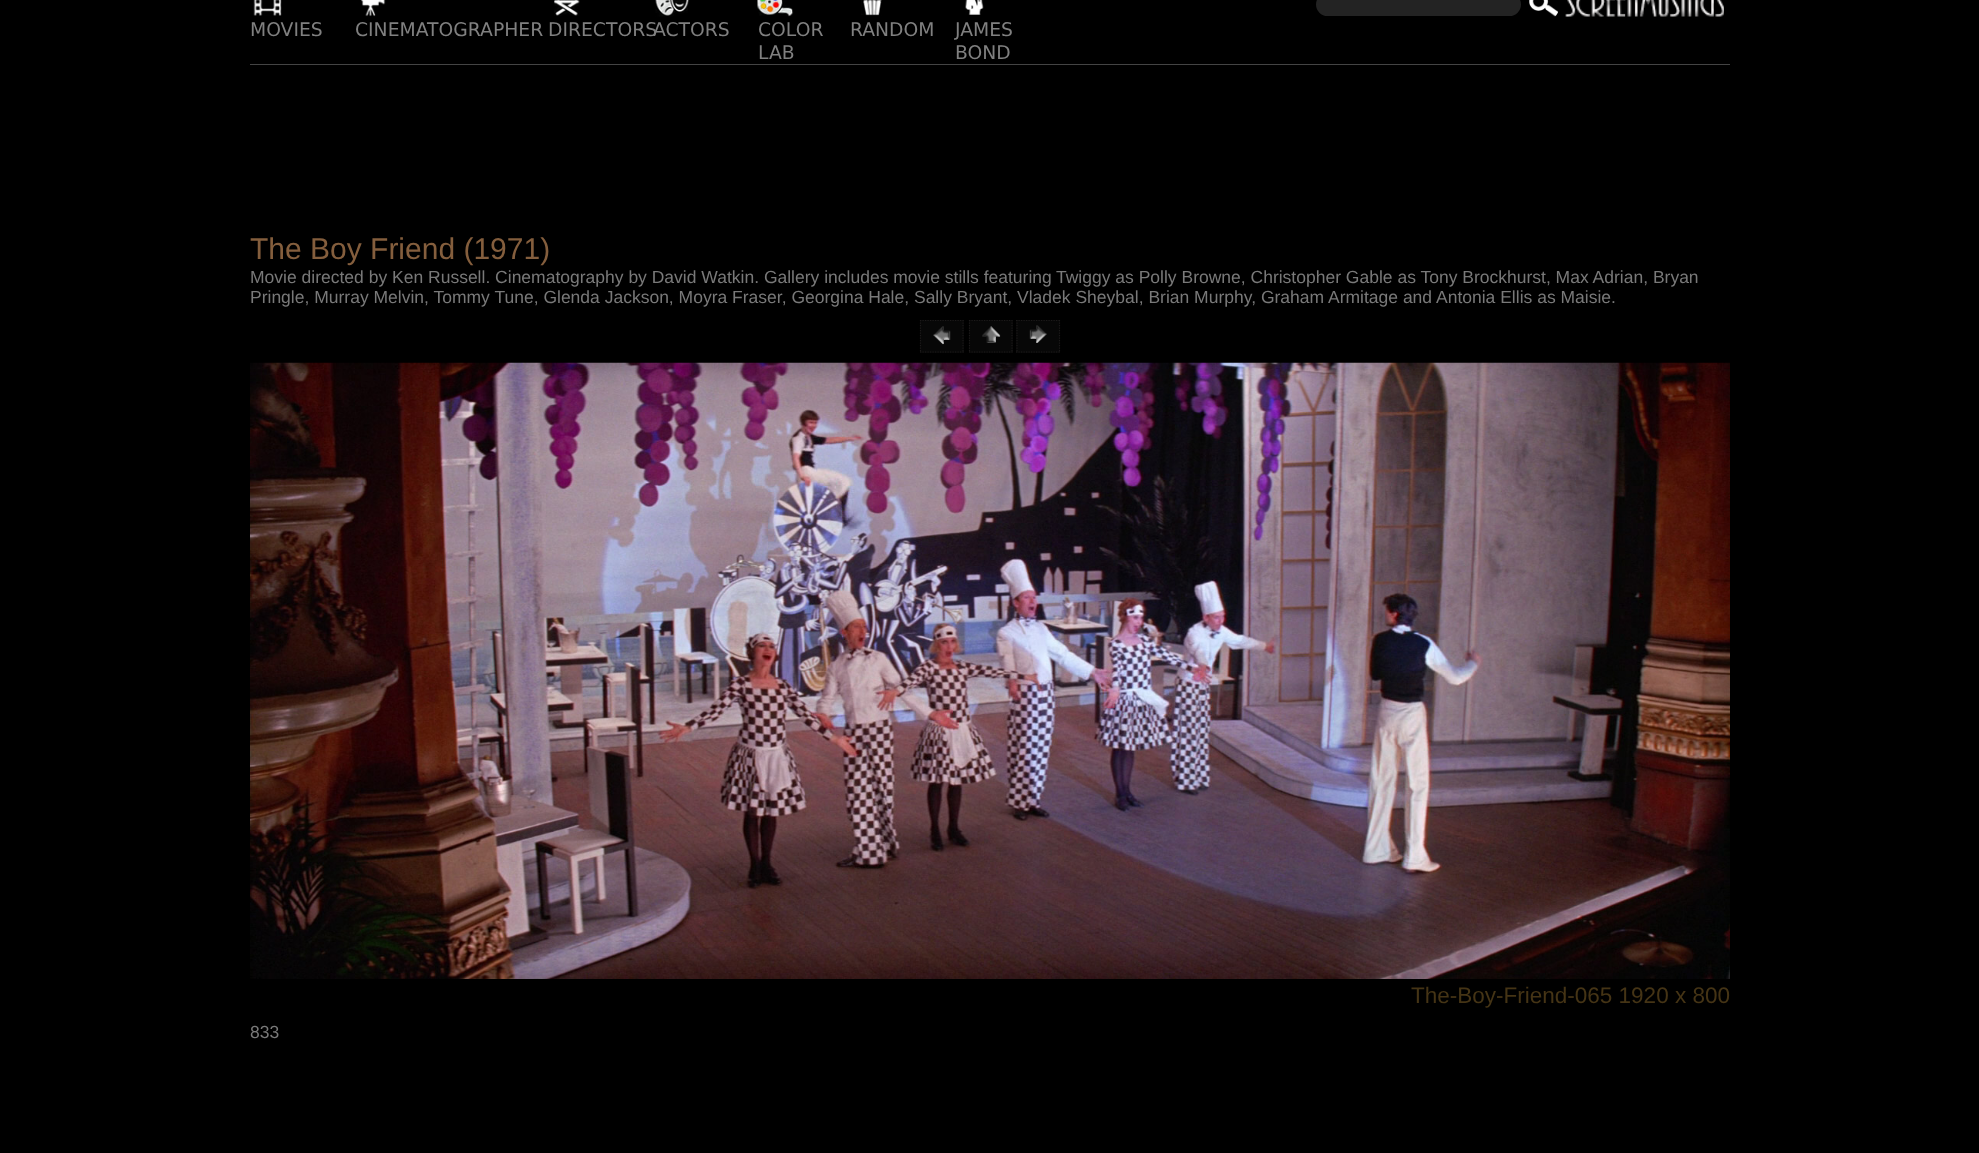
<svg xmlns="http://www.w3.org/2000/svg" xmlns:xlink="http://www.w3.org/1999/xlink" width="1979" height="1153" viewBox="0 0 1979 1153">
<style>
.cls-1{font:18.75px DejaVu Sans;fill:#808080}
.cls-2{font:30px Liberation Sans;fill:#845e3d}
.cls-3{font:17.5px Liberation Sans;fill:#797979}
.cls-4{font:22.5px Liberation Sans;fill:#453415}
</style>
<rect width="100%" height="100%" fill="#000000"/>
<rect fill="#444444" x="250" y="64" width="1480" height="1"/>
<rect fill="#232323" x="1316" y="-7" width="205" height="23" rx="11.5"/>
<image xlink:href="image0.png" x="1529" y="0" width="30" height="17"/>
<image xlink:href="image1.png" x="1565" y="0" width="159" height="17"/>
<image xlink:href="image2.png" x="253" y="0" width="29" height="16"/>
<image xlink:href="image3.png" x="361" y="0" width="25" height="17"/>
<image xlink:href="image4.png" x="554" y="0" width="26" height="16"/>
<image xlink:href="image5.png" x="655" y="0" width="34" height="17"/>
<image xlink:href="image6.png" x="757" y="0" width="37" height="17"/>
<image xlink:href="image7.png" x="861" y="0" width="21" height="16"/>
<image xlink:href="image8.png" x="965" y="0" width="19" height="15"/>
<rect fill="#070707" x="920" y="320" width="44" height="33"/>
<path fill="none" stroke="#1c1a1a" stroke-width="1.2" stroke-dasharray="1.25 1.25" d="M920 320.5H964M963 320V352.5M920 352H964M920.5 320V352.5"/>
<rect fill="#070707" x="969" y="320" width="44" height="33"/>
<path fill="none" stroke="#1c1a1a" stroke-width="1.2" stroke-dasharray="1.25 1.25" d="M969 320.5H1012.5M1012 320V352.5M969 352H1012.5M969.5 320V352.5"/>
<rect fill="#070707" x="1016" y="320" width="44" height="33"/>
<path fill="none" stroke="#1c1a1a" stroke-width="1.2" stroke-dasharray="1.25 1.25" d="M1016 320.5H1060M1059.5 320V352.5M1016 352H1060M1017 320V352.5"/>
<image xlink:href="image9.png" x="933" y="326" width="18" height="19"/>
<image xlink:href="image10.png" x="982" y="326" width="19" height="17"/>
<image xlink:href="image11.png" x="1029" y="325" width="18" height="18"/>
<image xlink:href="image12.png" x="250" y="362" width="1480" height="617"/>
<text class="cls-1" x="250" y="36">MOVIES</text>
<text class="cls-1" x="355" y="36">CINEMATOGRAPHER</text>
<text class="cls-1" x="548" y="36">DIRECTORS</text>
<text class="cls-1" x="653" y="36">ACTORS</text>
<text class="cls-1"><tspan x="758" y="36">COLOR</tspan><tspan x="758" y="59">LAB</tspan></text>
<text class="cls-1" x="850" y="36">RANDOM</text>
<text class="cls-1"><tspan x="955" y="36">JAMES</tspan><tspan x="955" y="59">BOND</tspan></text>
<text class="cls-2" x="250" y="259">The Boy Friend (1971)</text>
<text class="cls-3" x="250" y="283">Movie directed by Ken Russell. Cinematography by David Watkin. Gallery includes movie stills featuring</text>
<text class="cls-3" x="1056" y="283">Twiggy as Polly Browne, Christopher Gable as Tony Brockhurst, Max Adrian, Bryan</text>
<text class="cls-3" x="250" y="303">Pringle, Murray Melvin, Tommy Tune, Glenda Jackson, Moyra Fraser, Georgina Hale, Sally Bryant, Vladek Sheybal, Brian Murphy, Graham Armitage and Antonia Ellis as Maisie.</text>
<text class="cls-4" x="1411" y="1003">The-Boy-Friend-065 1920 x 800</text>
<text class="cls-3" x="250" y="1038">833</text>
</svg>
